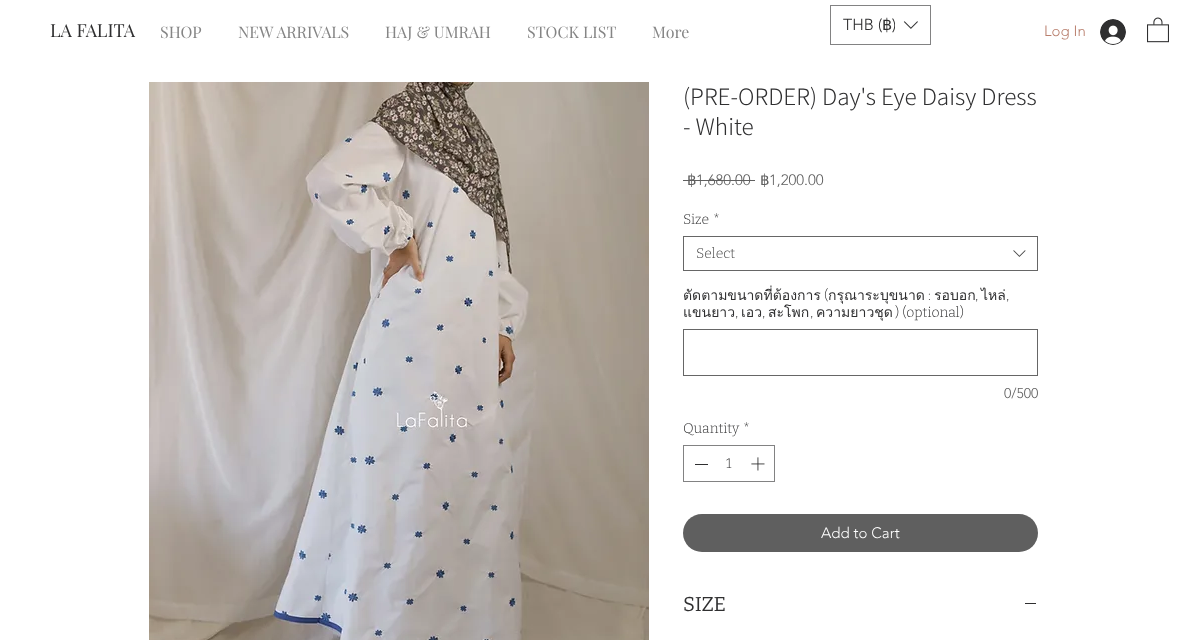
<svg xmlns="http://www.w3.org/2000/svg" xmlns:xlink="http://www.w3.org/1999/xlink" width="1186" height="640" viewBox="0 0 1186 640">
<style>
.cls-1{font:18px Playfair Display;fill:#2f2f30}
.cls-2{font:16px Playfair Display;fill:#858585}
.cls-3{font:300 16px 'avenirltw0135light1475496';fill:#2f2f30}
.cls-4{font:16px DejaVu Sans;fill:#2f2f30}
.cls-5{font:300 15px 'avenirltw0135light1475496';fill:#b97f6d}
.cls-6{font:300 25px Assistant;fill:#2f2f30}
.cls-7{font:15px DejaVu Sans;fill:#5f5f5f}
.cls-8{font:300 15px 'avenirltw0135light1475496';fill:#5f5f5f}
.cls-9{font:100 14px Bitter;fill:#2f2f30}
.cls-10{font:100 14px Bitter;fill:#444444}
.cls-11{font:14px Loma;fill:#2f2f30}
.cls-12{font:300 14px 'avenirltw0135light1475496';fill:#5f5f5f}
.cls-13{font:300 15px 'avenirltw0135light1475496';fill:#ffffff}
.cls-14{font:20px Bitter;fill:#2f2f30}
</style>
<defs>
<clipPath id="clip1"><rect x="843" y="14" width="52" height="22"/></clipPath>
</defs>
<rect width="100%" height="100%" fill="#ffffff"/>
<rect fill="none" stroke="#828283" x="830.5" y="5.5" width="100" height="39"/>
<image xlink:href="image0.png" x="903" y="21" width="15" height="8"/>
<image xlink:href="image1.png" x="1100" y="19" width="26" height="26"/>
<image xlink:href="image2.png" x="1147" y="17" width="22" height="26"/>
<image xlink:href="image3.png" x="149" y="82" width="500" height="558"/>
<rect fill="#5f5f5f" x="683" y="180" width="72" height="1"/>
<rect fill="none" stroke="#666666" x="683.5" y="236.5" width="354" height="34"/>
<image xlink:href="image4.png" x="1013" y="250" width="13" height="7"/>
<rect fill="none" stroke="#666666" x="683.5" y="329.5" width="354" height="46"/>
<rect fill="none" stroke="#828283" x="683.5" y="445.5" width="91" height="36"/>
<rect fill="#2f2f30" x="695" y="464" width="13" height="1"/>
<image xlink:href="image5.png" x="751" y="457" width="14" height="14"/>
<rect fill="#5f5f5f" x="683" y="514" width="355" height="38" rx="19"/>
<rect fill="#2f2f30" x="1025" y="603" width="11" height="1"/>
<text class="cls-1" x="50" y="37">LA FALITA</text>
<text class="cls-2" x="160" y="38">SHOP</text>
<text class="cls-2" x="238" y="38">NEW ARRIVALS</text>
<text class="cls-2" x="385" y="38">HAJ &amp; UMRAH</text>
<text class="cls-2" x="527" y="38">STOCK LIST</text>
<text class="cls-2" x="652" y="38">More</text>
<text class="cls-3" x="843" y="30">THB (</text>
<text class="cls-4" x="882" y="30">฿</text>
<g clip-path="url(#clip1)">
<text class="cls-3" x="892" y="30">)</text>
</g>
<text class="cls-5" x="1044" y="36">Log In</text>
<text class="cls-6"><tspan x="683" y="105">(PRE-ORDER) Day's Eye Daisy Dress</tspan><tspan x="683" y="135">- White</tspan></text>
<text class="cls-7" x="687" y="185">฿</text>
<text class="cls-8" x="696" y="185">1,680.00</text>
<text class="cls-7" x="760" y="185">฿</text>
<text class="cls-8" x="769" y="185">1,200.00</text>
<text class="cls-9" x="683" y="224">Size</text>
<text class="cls-9" x="713" y="224">*</text>
<text class="cls-10" x="696" y="258">Select</text>
<text class="cls-11" x="683" y="300">ตัดตามขนาดที่ต้องการ</text>
<text class="cls-9" x="824" y="300">(</text>
<text class="cls-11" x="828" y="300">กรุณาระบุขนาด</text>
<text class="cls-9" x="928" y="300">:</text>
<text class="cls-11" x="934" y="300">รอบอก</text>
<text class="cls-11" x="981" y="300">ไหล่</text>
<text class="cls-9" x="975" y="300">,</text>
<text class="cls-9" x="1006" y="300">,</text>
<text class="cls-11" x="683" y="317">แขนยาว</text>
<text class="cls-9" x="735" y="317">,</text>
<text class="cls-11" x="741" y="317">เอว</text>
<text class="cls-9" x="762" y="317">,</text>
<text class="cls-11" x="768" y="317">สะโพก</text>
<text class="cls-9" x="810" y="317">,</text>
<text class="cls-11" x="816" y="317">ความยาวชุด</text>
<text class="cls-9" x="895" y="317">) (optional)</text>
<text class="cls-12" x="1004" y="398">0/500</text>
<text class="cls-9" x="683" y="433">Quantity</text>
<text class="cls-9" x="743" y="433">*</text>
<text class="cls-9" x="726" y="468">1</text>
<text class="cls-13" x="821" y="538">Add to Cart</text>
<text class="cls-14" x="683" y="611">SIZE</text>
</svg>
